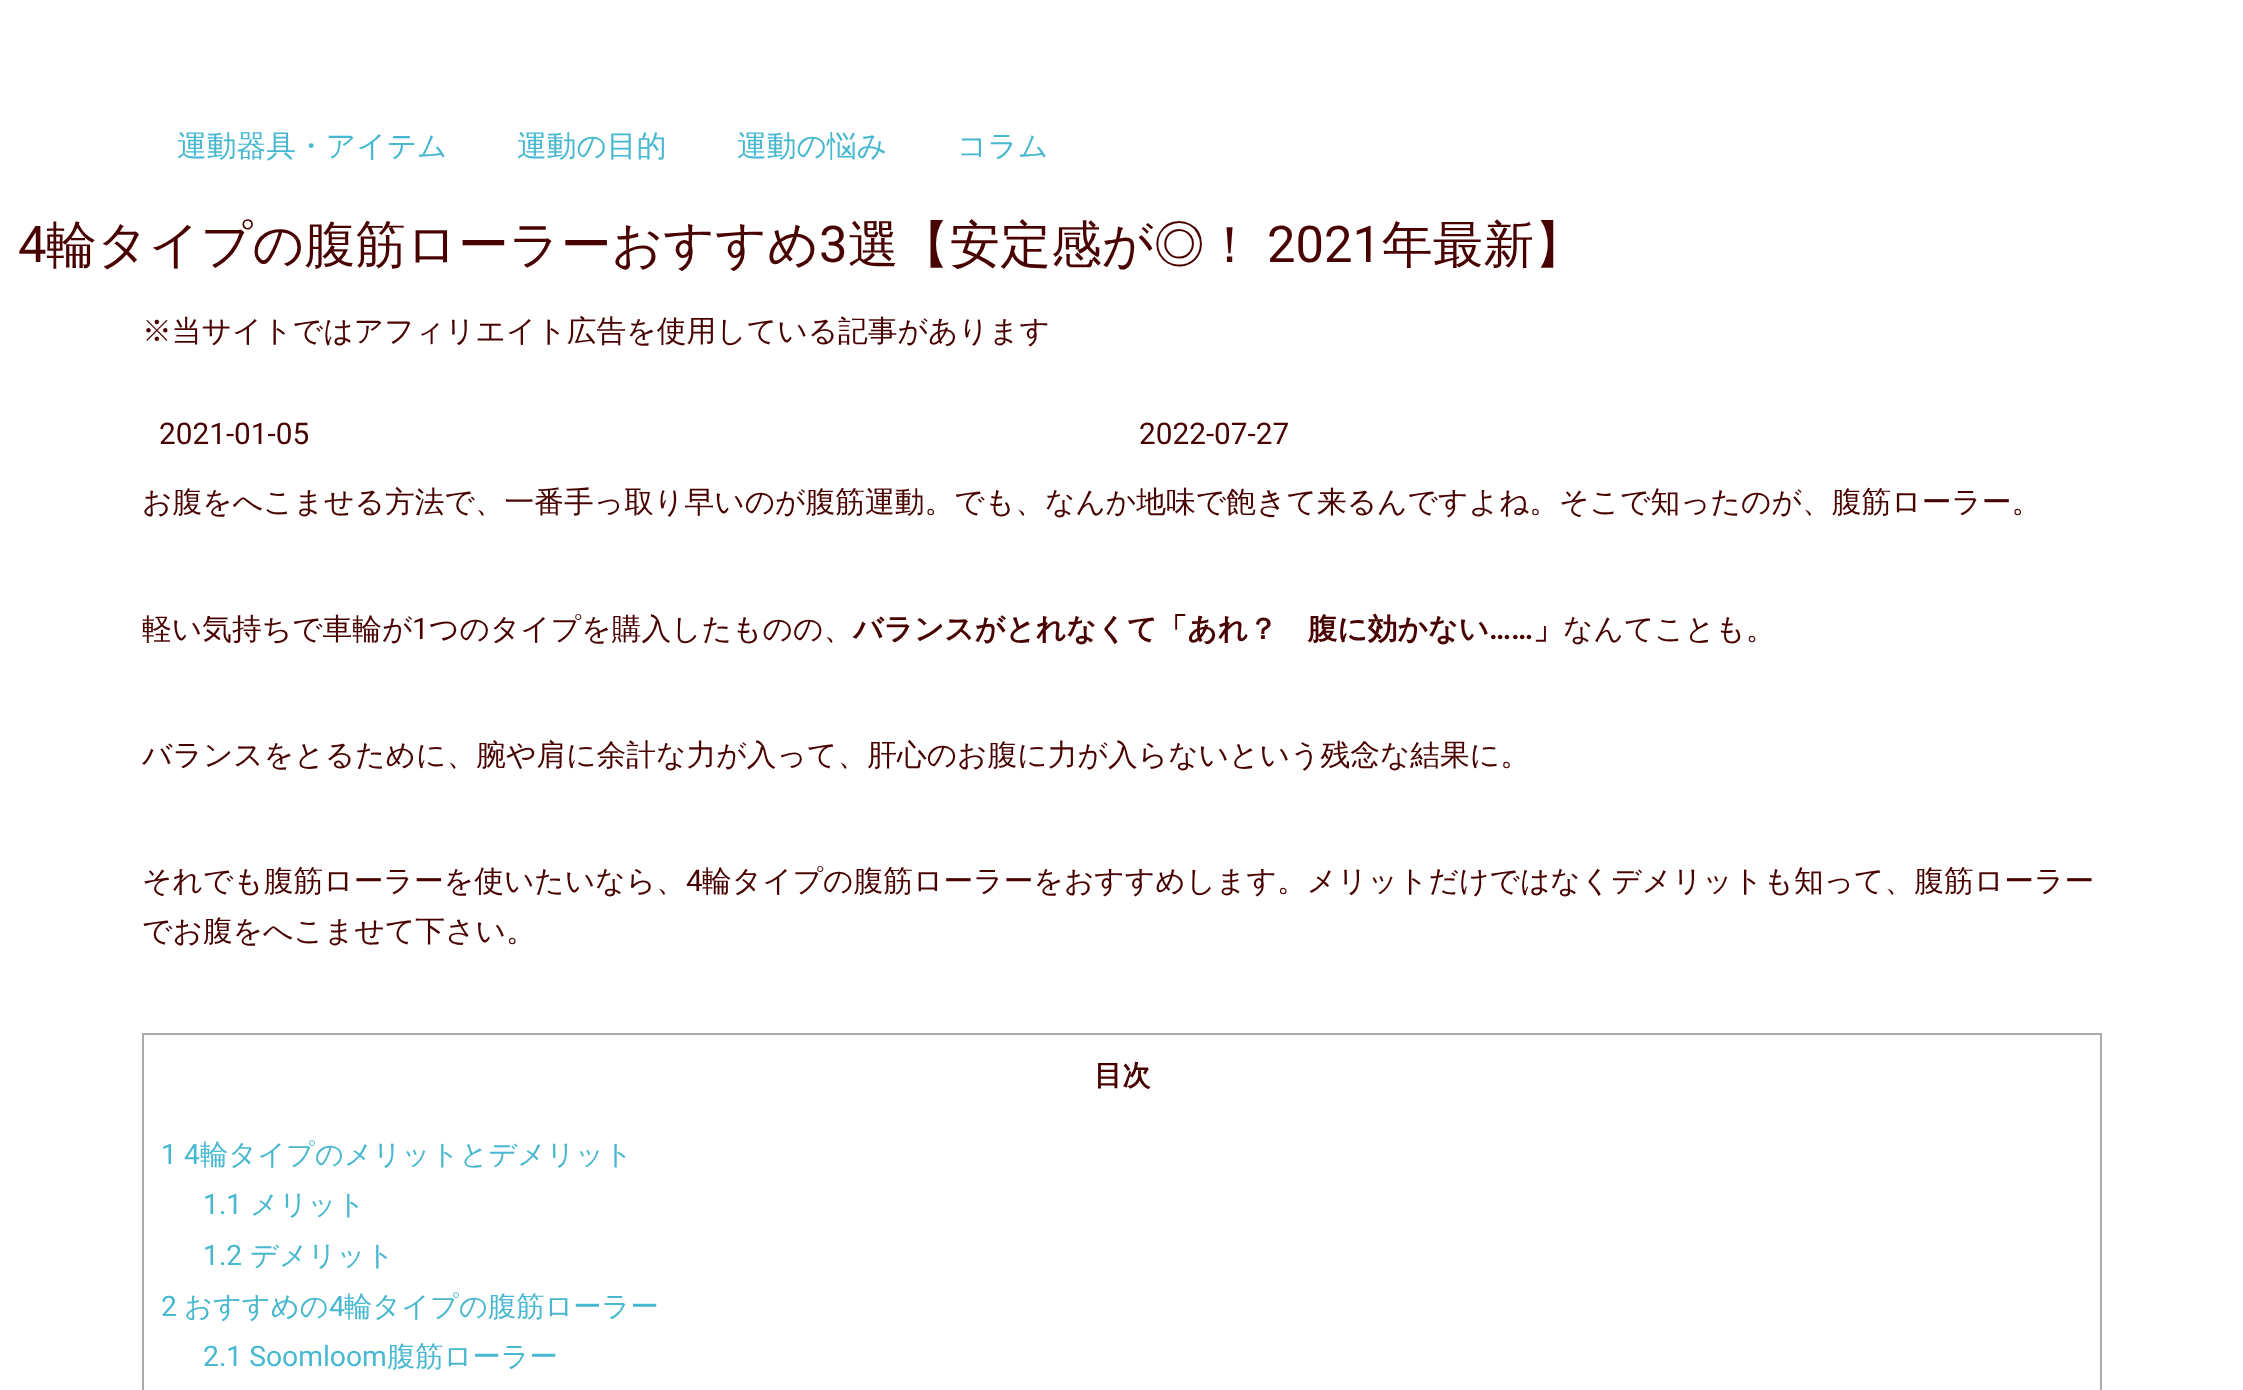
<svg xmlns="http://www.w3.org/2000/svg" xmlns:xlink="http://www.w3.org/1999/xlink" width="2243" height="1390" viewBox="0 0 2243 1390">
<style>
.cls-1{font:500 29.75px WenQuanYi Zen Hei;fill:#48b8d0}
.cls-2{font:50.75px Roboto;fill:#490202}
.cls-3{font:500 50.75px WenQuanYi Zen Hei;fill:#490202}
.cls-4{font:500 29.75px WenQuanYi Zen Hei;fill:#490202}
.cls-5{font:29.75px Roboto;fill:#490202}
.cls-6{font:bold 29.75px WenQuanYi Zen Hei;fill:#490202}
.cls-7{font:bold 29.75px Roboto;fill:#490202}
.cls-8{font:bold 28.25px WenQuanYi Zen Hei;fill:#490202}
.cls-9{font:28.25px Roboto;fill:#48b8d0}
.cls-10{font:500 28.25px WenQuanYi Zen Hei;fill:#48b8d0}
</style>
<rect width="100%" height="100%" fill="#ffffff"/>
<rect fill="none" stroke="#aaaaaa" stroke-width="2" x="143" y="1034" width="1958" height="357"/>
<text class="cls-1" x="177" y="156">運動器具・アイテム</text>
<text class="cls-1" x="517" y="156">運動の目的</text>
<text class="cls-1" x="737" y="156">運動の悩み</text>
<text class="cls-1" x="957" y="156">コラム</text>
<text class="cls-2" x="18" y="262">4</text>
<text class="cls-3" x="46" y="262">輪タイプの腹筋ローラーおすすめ</text>
<text class="cls-2" x="819" y="262">3</text>
<text class="cls-3" x="848" y="262">選【安定感が◎！</text>
<text class="cls-2" x="1267" y="262">2021</text>
<text class="cls-3" x="1382" y="262">年最新】</text>
<text class="cls-4" x="142" y="341">※当サイトではアフィリエイト広告を使用している記事があります</text>
<text class="cls-5" x="159" y="444">2021-01-05</text>
<text class="cls-5" x="1139" y="444">2022-07-27</text>
<text class="cls-4" x="142" y="512">お腹をへこませる方法で、一番手っ取り早いのが腹筋運動。でも、なんか地味で飽きて来るんですよね。そこで知ったのが、腹筋ローラー。</text>
<text class="cls-4" x="142" y="639">軽い気持ちで車輪が</text>
<text class="cls-5" x="412" y="639">1</text>
<text class="cls-4" x="429" y="639">つのタイプを購入したものの、</text>
<text class="cls-6" x="853" y="639">バランスがとれなくて「あれ？　腹に効かない</text>
<text class="cls-7" x="1489" y="639">……</text>
<text class="cls-6" x="1533" y="639">」</text>
<text class="cls-4" x="1563" y="639">なんてことも。</text>
<text class="cls-4" x="142" y="765">バランスをとるために、腕や肩に余計な力が入って、肝心のお腹に力が入らないという残念な結果に。</text>
<text class="cls-4" x="142" y="891">それでも腹筋ローラーを使いたいなら、</text>
<text class="cls-5" x="686" y="891">4</text>
<text class="cls-4" x="702" y="891">輪タイプの腹筋ローラーをおすすめします。メリットだけではなくデメリットも知って、腹筋ローラー</text>
<text class="cls-4" x="142" y="941">でお腹をへこませて下さい。</text>
<text class="cls-8" x="1094" y="1085">目次</text>
<text class="cls-9" x="161" y="1164">1 4</text>
<text class="cls-10" x="200" y="1164">輪タイプのメリットとデメリット</text>
<text class="cls-9" x="203" y="1214">1.1</text>
<text class="cls-10" x="250" y="1214">メリット</text>
<text class="cls-9" x="203" y="1265">1.2</text>
<text class="cls-10" x="250" y="1265">デメリット</text>
<text class="cls-9" x="161" y="1316">2</text>
<text class="cls-10" x="184" y="1316">おすすめの</text>
<text class="cls-9" x="329" y="1316">4</text>
<text class="cls-10" x="344" y="1316">輪タイプの腹筋ローラー</text>
<text class="cls-9" x="203" y="1366">2.1 Soomloom</text>
<text class="cls-10" x="387" y="1366">腹筋ローラー</text>
</svg>
